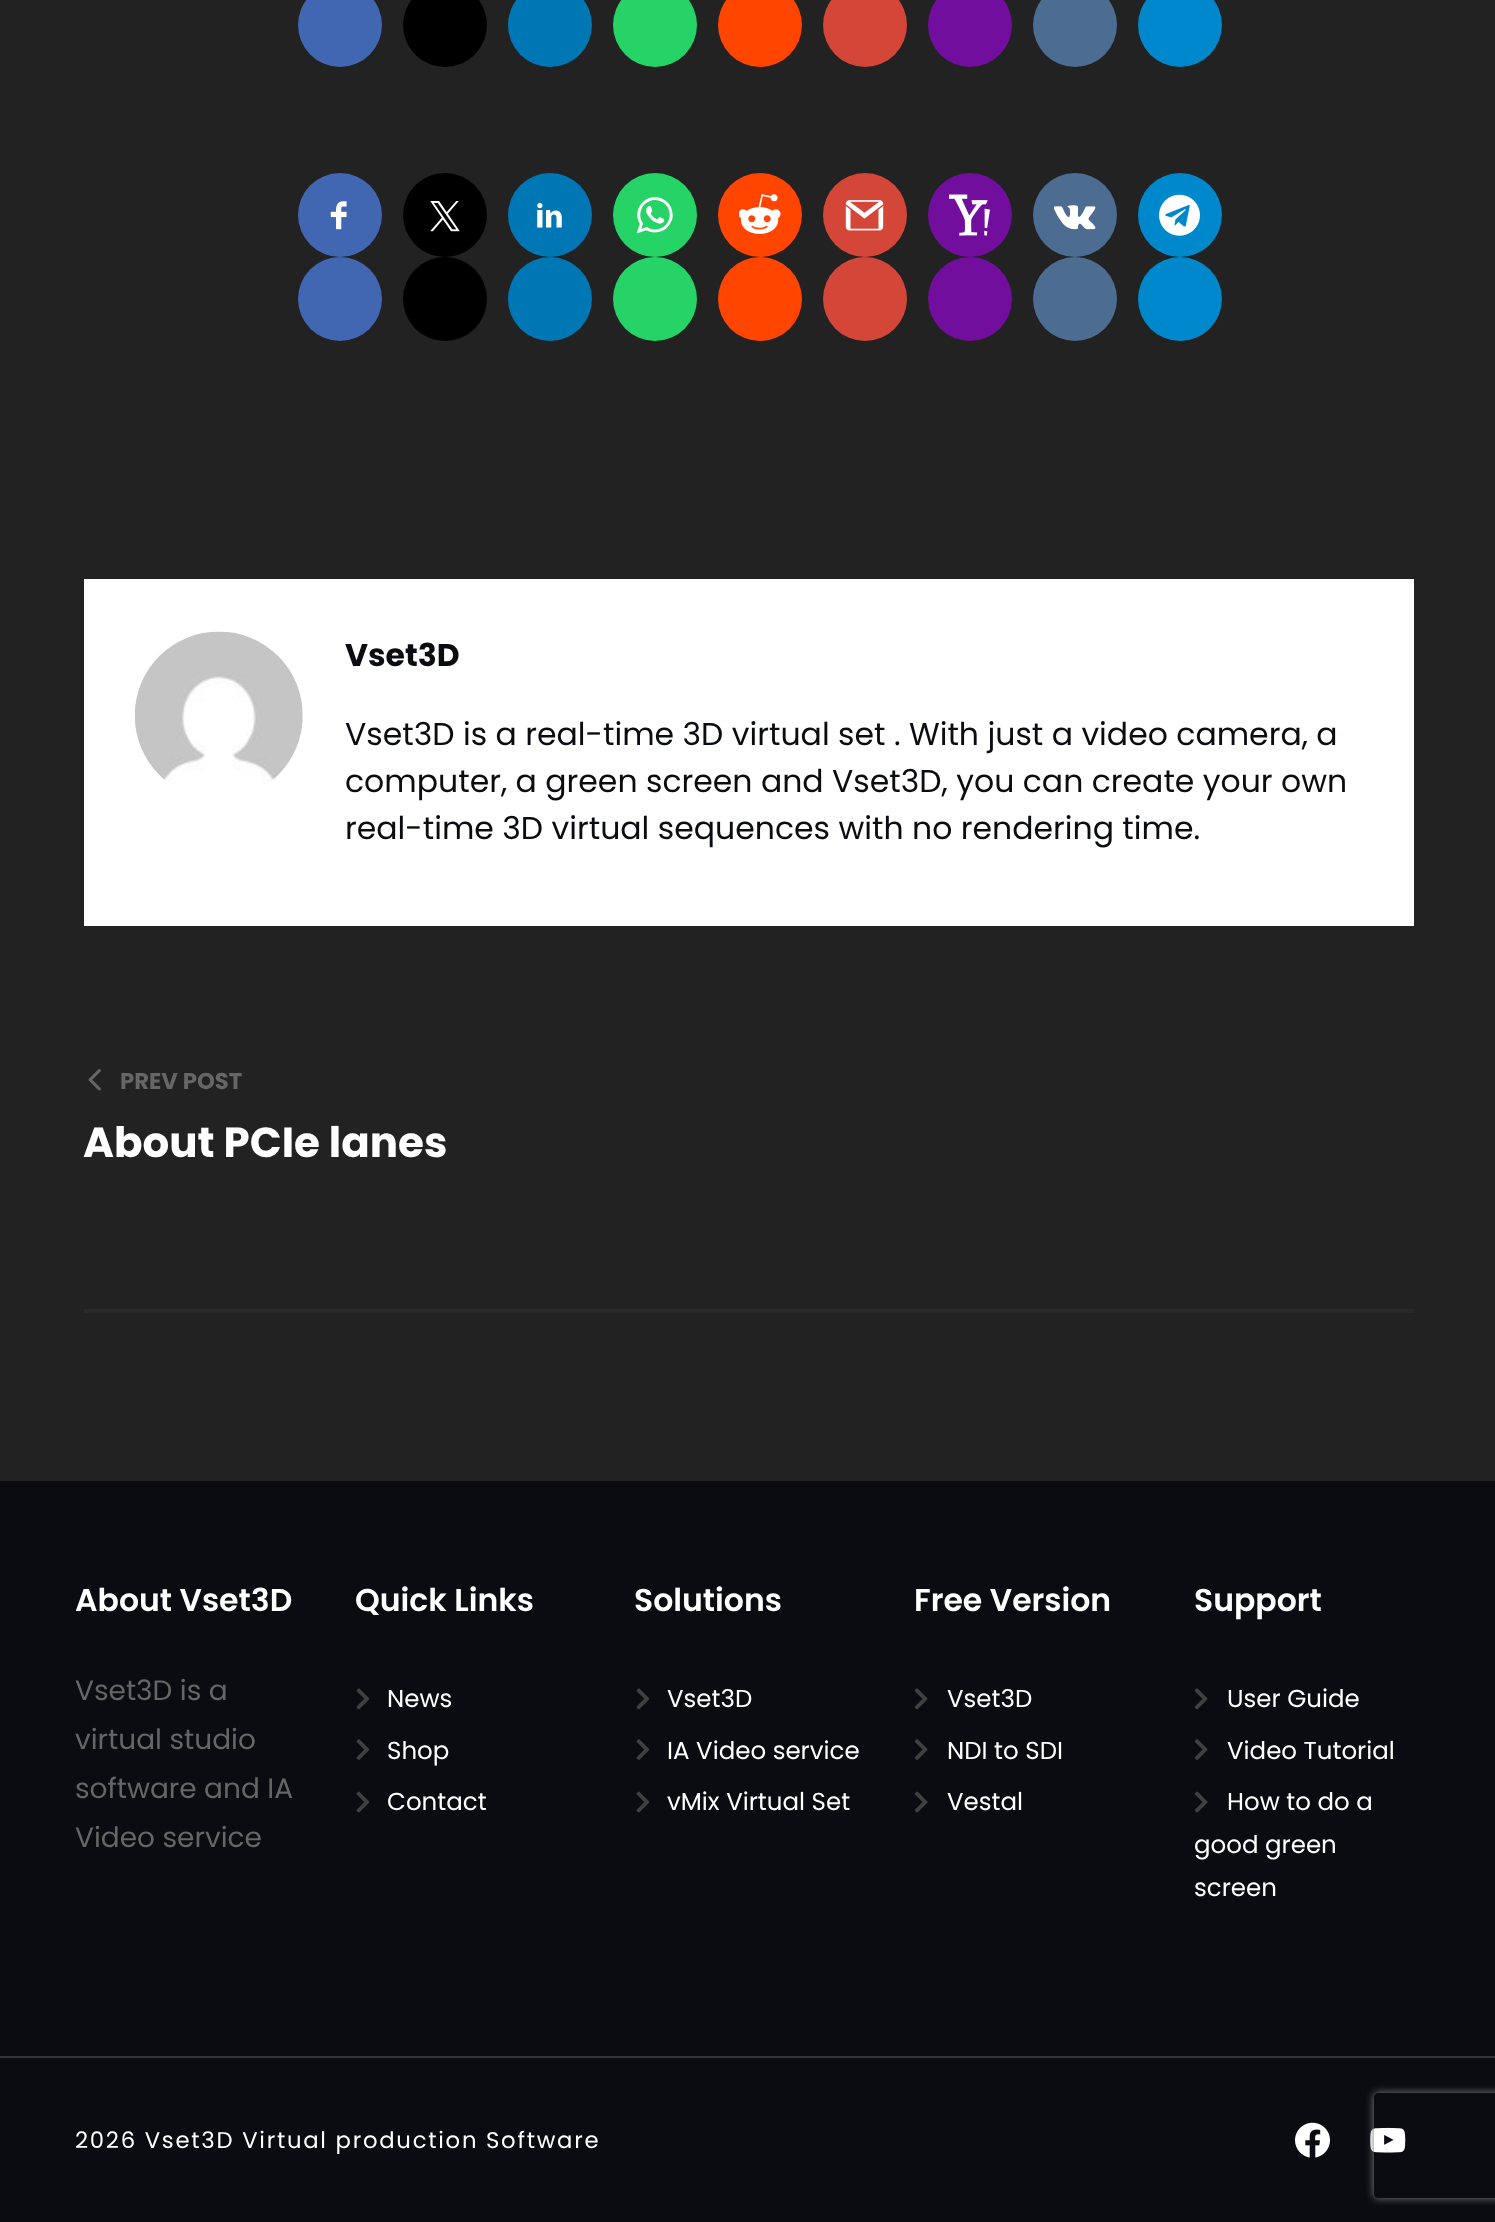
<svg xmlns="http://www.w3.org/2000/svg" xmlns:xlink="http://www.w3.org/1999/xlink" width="1495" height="2222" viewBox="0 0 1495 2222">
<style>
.cls-1{font:bold 31.5px Poppins;fill:#0a0c11}
.cls-2{font:31.5px Poppins;fill:#0a0c11}
.cls-3{font:bold 22.75px Poppins;fill:#666666}
.cls-4{font:bold 42px Poppins;fill:#ffffff}
.cls-5{font:600 31.5px Poppins;fill:#ffffff}
.cls-6{font:28px Poppins;fill:#666666}
.cls-7{font:24.5px Poppins;fill:#ffffff}
.cls-8{font:22.75px Poppins;letter-spacing:1.75px;fill:#ffffff}
</style>
<defs>
<clipPath id="clip1"><path d="M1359 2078H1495V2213H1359ZM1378 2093H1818C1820 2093 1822 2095 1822 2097V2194C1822 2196 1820 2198 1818 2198H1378C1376 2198 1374 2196 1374 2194V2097C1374 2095 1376 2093 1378 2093Z" clip-rule="evenodd"/></clipPath>
</defs>
<rect width="100%" height="100%" fill="#222222"/>
<circle fill="#4267b2" cx="340" cy="25" r="42"/>
<circle fill="#000000" cx="445" cy="25" r="42"/>
<circle fill="#0077b5" cx="550" cy="25" r="42"/>
<circle fill="#25d366" cx="655" cy="25" r="42"/>
<circle fill="#ff4500" cx="760" cy="25" r="42"/>
<circle fill="#d44638" cx="865" cy="25" r="42"/>
<circle fill="#720e9e" cx="970" cy="25" r="42"/>
<circle fill="#4c6c91" cx="1075" cy="25" r="42"/>
<circle fill="#0088cc" cx="1180" cy="25" r="42"/>
<circle fill="#4267b2" cx="340" cy="215" r="42"/>
<image xlink:href="image0.png" x="330" y="201" width="17" height="29"/>
<circle fill="#4267b2" cx="340" cy="299" r="42"/>
<circle fill="#000000" cx="445" cy="215" r="42"/>
<image xlink:href="image1.png" x="430" y="201" width="30" height="31"/>
<circle fill="#000000" cx="445" cy="299" r="42"/>
<circle fill="#0077b5" cx="550" cy="215" r="42"/>
<image xlink:href="image2.png" x="537" y="203" width="25" height="25"/>
<circle fill="#0077b5" cx="550" cy="299" r="42"/>
<circle fill="#25d366" cx="655" cy="215" r="42"/>
<image xlink:href="image3.png" x="636" y="197" width="37" height="37"/>
<circle fill="#25d366" cx="655" cy="299" r="42"/>
<circle fill="#ff4500" cx="760" cy="215" r="42"/>
<image xlink:href="image4.png" x="739" y="194" width="42" height="40"/>
<circle fill="#ff4500" cx="760" cy="299" r="42"/>
<circle fill="#d44638" cx="865" cy="215" r="42"/>
<image xlink:href="image5.png" x="845" y="200" width="39" height="31"/>
<circle fill="#d44638" cx="865" cy="299" r="42"/>
<circle fill="#720e9e" cx="970" cy="215" r="42"/>
<image xlink:href="image6.png" x="949" y="194" width="41" height="42"/>
<circle fill="#720e9e" cx="970" cy="299" r="42"/>
<circle fill="#4c6c91" cx="1075" cy="215" r="42"/>
<image xlink:href="image7.png" x="1054" y="205" width="42" height="25"/>
<circle fill="#4c6c91" cx="1075" cy="299" r="42"/>
<circle fill="#0088cc" cx="1180" cy="215" r="42"/>
<image xlink:href="image8.png" x="1159" y="194" width="41" height="42"/>
<circle fill="#0088cc" cx="1180" cy="299" r="42"/>
<rect fill="#ffffff" x="84" y="579" width="1330" height="347"/>
<image xlink:href="image9.png" x="134" y="631" width="169" height="154"/>
<image xlink:href="image10.png" x="88" y="1069" width="13" height="22"/>
<rect fill="#28292b" x="84" y="1309" width="1330" height="4"/>
<rect fill="#0a0c11" x="0" y="1481" width="1495" height="575"/>
<image xlink:href="image11.png" x="356" y="1688" width="14" height="22"/>
<image xlink:href="image12.png" x="356" y="1739" width="14" height="21"/>
<image xlink:href="image13.png" x="356" y="1791" width="14" height="22"/>
<image xlink:href="image11.png" x="636" y="1688" width="14" height="22"/>
<image xlink:href="image12.png" x="636" y="1739" width="14" height="21"/>
<image xlink:href="image13.png" x="636" y="1791" width="14" height="22"/>
<image xlink:href="image14.png" x="914" y="1688" width="14" height="22"/>
<image xlink:href="image15.png" x="914" y="1739" width="14" height="21"/>
<image xlink:href="image16.png" x="914" y="1791" width="14" height="22"/>
<image xlink:href="image14.png" x="1194" y="1688" width="14" height="22"/>
<image xlink:href="image15.png" x="1194" y="1739" width="14" height="21"/>
<image xlink:href="image16.png" x="1194" y="1791" width="14" height="22"/>
<rect fill="#0a0c11" x="0" y="2058" width="1495" height="164"/>
<rect fill="#323438" x="0" y="2056" width="1495" height="2"/>
<image xlink:href="image17.png" x="1295" y="2122" width="35" height="36"/>
<image xlink:href="image18.png" x="1370" y="2127" width="36" height="26"/>
<g clip-path="url(#clip1)">
<rect fill="#808080" filter="blur(4.5px)" x="1374" y="2093" width="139" height="105" rx="4"/>
</g>
<text class="cls-1" x="345" y="666">Vset3D</text>
<text class="cls-2"><tspan x="345" y="745">Vset3D is a real-time 3D virtual set . With just a video camera, a</tspan><tspan x="345" y="792">computer, a green screen and Vset3D, you can create your own</tspan><tspan x="345" y="839">real-time 3D virtual sequences with no rendering time.</tspan></text>
<text class="cls-3" x="120" y="1089">PREV POST</text>
<text class="cls-4" x="83" y="1157">About PCIe lanes</text>
<text class="cls-5" x="75" y="1611">About Vset3D</text>
<text class="cls-6"><tspan x="75" y="1700">Vset3D is a</tspan><tspan x="75" y="1749">virtual studio</tspan><tspan x="75" y="1798">software and IA</tspan><tspan x="75" y="1847">Video service</tspan></text>
<text class="cls-5" x="355" y="1611">Quick Links</text>
<text class="cls-7" x="387" y="1707">News</text>
<text class="cls-7" x="387" y="1759">Shop</text>
<text class="cls-7" x="387" y="1810">Contact</text>
<text class="cls-5" x="634" y="1611">Solutions</text>
<text class="cls-7" x="667" y="1707">Vset3D</text>
<text class="cls-7" x="667" y="1759">IA Video service</text>
<text class="cls-7" x="667" y="1810">vMix Virtual Set</text>
<text class="cls-5" x="914" y="1611">Free Version</text>
<text class="cls-7" x="947" y="1707">Vset3D</text>
<text class="cls-7" x="947" y="1759">NDI to SDI</text>
<text class="cls-7" x="947" y="1810">Vestal</text>
<text class="cls-5" x="1194" y="1611">Support</text>
<text class="cls-7" x="1227" y="1707">User Guide</text>
<text class="cls-7" x="1227" y="1759">Video Tutorial</text>
<text class="cls-7" x="1227" y="1810">How to do a</text>
<text class="cls-7"><tspan x="1194" y="1853">good green</tspan><tspan x="1194" y="1896">screen</tspan></text>
<text class="cls-8" x="75" y="2148">2026 Vset3D Virtual production Software</text>
</svg>
